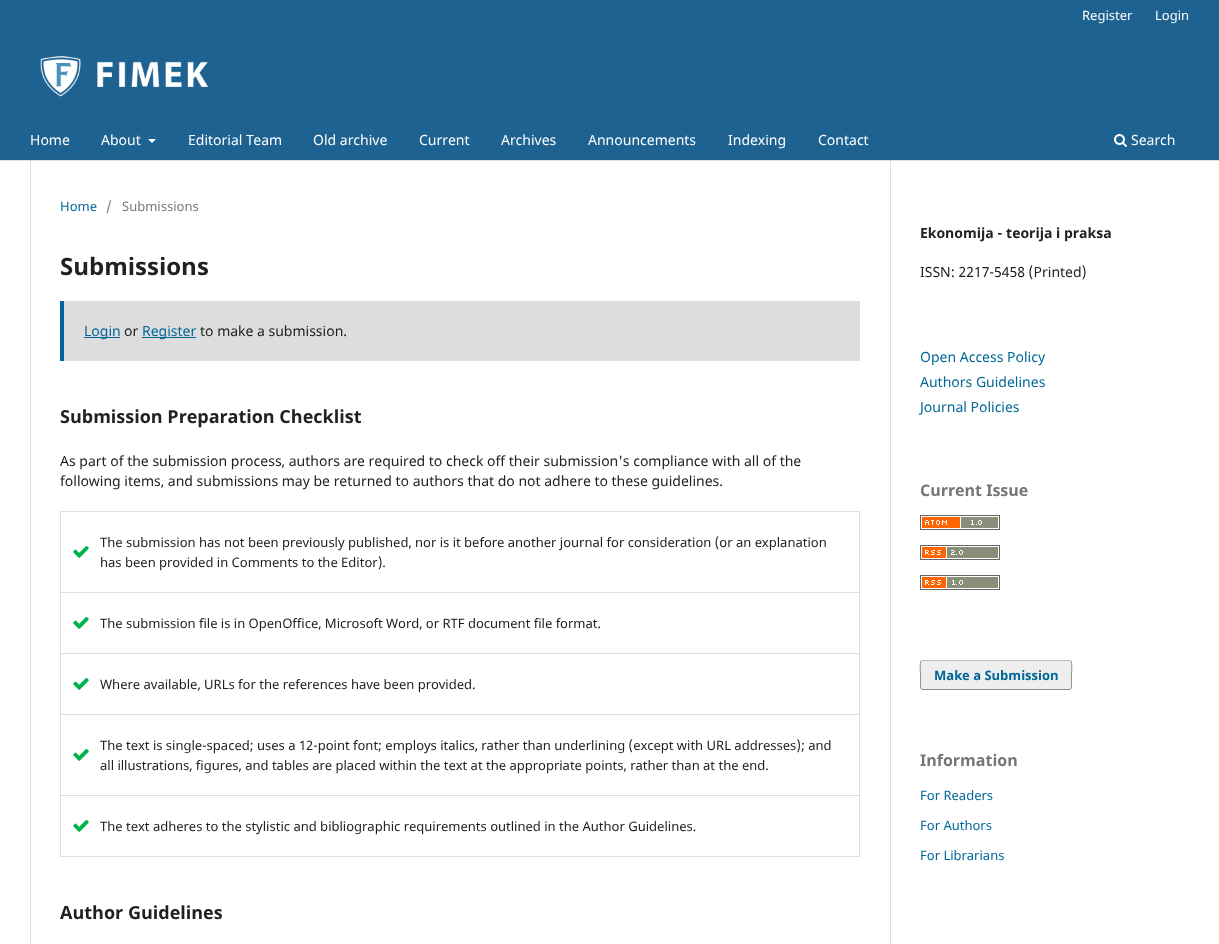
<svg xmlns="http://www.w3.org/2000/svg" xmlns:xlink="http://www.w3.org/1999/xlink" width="1219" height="944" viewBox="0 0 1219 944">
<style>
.cls-1{font:13.02px Noto Sans;fill:#ffffff}
.cls-2{font:14px Noto Sans;fill:#ffffff}
.cls-3{font:13.02px Noto Sans;fill:#006798}
.cls-4{font:13.02px Noto Sans;fill:#757575}
.cls-5{font:bold 24px Noto Sans;fill:#212121}
.cls-6{font:14px Noto Sans;fill:#006798}
.cls-7{font:14px Noto Sans;fill:#212121}
.cls-8{font:bold 18px Noto Sans;fill:#212121}
.cls-9{font:13.02px Noto Sans;fill:#212121}
.cls-10{font:bold 14px Noto Sans;fill:#212121}
.cls-11{font:bold 16px Noto Sans;fill:#757575}
.cls-12{font:bold 13.02px Noto Sans;fill:#006798}
</style>
<rect width="100%" height="100%" fill="#ffffff"/>
<rect fill="#1e6292" x="0" y="0" width="1219" height="160"/>
<rect fill="#dddddd" x="0" y="160" width="1219" height="1"/>
<path fill="#ffffff" d="M148 139H156L152 143Z"/>
<image xlink:href="image0.png" x="1114" y="134" width="13" height="13"/>
<image xlink:href="image1.png" x="40" y="56" width="168" height="41"/>
<rect fill="#dddddd" x="30" y="161" width="1" height="783"/>
<rect fill="#dddddd" x="64" y="301" width="796" height="60"/>
<rect fill="#006798" x="60" y="301" width="4" height="60"/>
<rect fill="#006798" x="84" y="337" width="36" height="1"/>
<rect fill="#006798" x="142" y="337" width="54" height="1"/>
<rect fill="#dddddd" x="60" y="511" width="800" height="1"/>
<rect fill="#dddddd" x="859" y="511" width="1" height="346"/>
<rect fill="#dddddd" x="60" y="511" width="1" height="346"/>
<rect fill="#dddddd" x="61" y="592" width="798" height="1"/>
<image xlink:href="image2.png" x="73" y="546" width="16" height="12"/>
<rect fill="#dddddd" x="61" y="653" width="798" height="1"/>
<image xlink:href="image2.png" x="73" y="617" width="16" height="12"/>
<rect fill="#dddddd" x="61" y="714" width="798" height="1"/>
<image xlink:href="image2.png" x="73" y="678" width="16" height="12"/>
<rect fill="#dddddd" x="61" y="795" width="798" height="1"/>
<image xlink:href="image2.png" x="73" y="749" width="16" height="12"/>
<rect fill="#dddddd" x="61" y="856" width="798" height="1"/>
<image xlink:href="image2.png" x="73" y="820" width="16" height="12"/>
<rect fill="#dddddd" x="890" y="161" width="1" height="783"/>
<image xlink:href="image3.png" x="920" y="515" width="80" height="15"/>
<image xlink:href="image4.png" x="920" y="545" width="80" height="15"/>
<image xlink:href="image5.png" x="920" y="575" width="80" height="15"/>
<rect fill="#eeeeee" x="920" y="660" width="152" height="30" rx="3"/>
<path fill="none" stroke="#bbbbbb" d="M921 661L923 660.5H1069L1071 661"/>
<path fill="none" stroke="#000000" stroke-opacity="0.4" d="M1071 661C1072.5 663 1071.5 672.5 1071.5 675V683C1071.5 685 1072.5 689.5 1069 689.5H923C919.5 689.5 920.5 685 920.5 683V675C920.5 672.5 919.5 663 921 661"/>
<text class="cls-1" x="1082" y="20">Register</text>
<text class="cls-1" x="1155" y="20">Login</text>
<text class="cls-2" x="30" y="145">Home</text>
<text class="cls-2" x="101" y="145">About</text>
<text class="cls-2" x="188" y="145">Editorial Team</text>
<text class="cls-2" x="313" y="145">Old archive</text>
<text class="cls-2" x="419" y="145">Current</text>
<text class="cls-2" x="501" y="145">Archives</text>
<text class="cls-2" x="588" y="145">Announcements</text>
<text class="cls-2" x="728" y="145">Indexing</text>
<text class="cls-2" x="818" y="145">Contact</text>
<text class="cls-2" x="1131" y="145">Search</text>
<text class="cls-3" x="60" y="211">Home</text>
<text class="cls-4" x="106" y="211">/</text>
<text class="cls-4" x="122" y="211">Submissions</text>
<text class="cls-5" x="60" y="275">Submissions</text>
<text class="cls-6" x="84" y="336">Login</text>
<text class="cls-7" x="124" y="336">or</text>
<text class="cls-6" x="142" y="336">Register</text>
<text class="cls-7" x="200" y="336">to make a submission.</text>
<text class="cls-8" x="60" y="423">Submission Preparation Checklist</text>
<text class="cls-7"><tspan x="60" y="466">As part of the submission process, authors are required to check off their submission's compliance with all of the</tspan><tspan x="60" y="486">following items, and submissions may be returned to authors that do not adhere to these guidelines.</tspan></text>
<text class="cls-9"><tspan x="100" y="547">The submission has not been previously published, nor is it before another journal for consideration (or an explanation</tspan><tspan x="100" y="567">has been provided in Comments to the Editor).</tspan></text>
<text class="cls-9" x="100" y="628">The submission file is in OpenOffice, Microsoft Word, or RTF document file format.</text>
<text class="cls-9" x="100" y="689">Where available, URLs for the references have been provided.</text>
<text class="cls-9"><tspan x="100" y="750">The text is single-spaced; uses a 12-point font; employs italics, rather than underlining (except with URL addresses); and</tspan><tspan x="100" y="770">all illustrations, figures, and tables are placed within the text at the appropriate points, rather than at the end.</tspan></text>
<text class="cls-9" x="100" y="831">The text adheres to the stylistic and bibliographic requirements outlined in the Author Guidelines.</text>
<text class="cls-8" x="60" y="919">Author Guidelines</text>
<text class="cls-10" x="920" y="238">Ekonomija - teorija i praksa</text>
<text class="cls-7" x="920" y="277">ISSN: 2217-5458 (Printed)</text>
<text class="cls-6"><tspan x="920" y="362">Open Access Policy</tspan><tspan x="920" y="387">Authors Guidelines</tspan><tspan x="920" y="412">Journal Policies</tspan></text>
<text class="cls-11" x="920" y="496">Current Issue</text>
<text class="cls-12" x="934" y="680">Make a Submission</text>
<text class="cls-11" x="920" y="766">Information</text>
<text class="cls-3" x="920" y="800">For Readers</text>
<text class="cls-3" x="920" y="830">For Authors</text>
<text class="cls-3" x="920" y="860">For Librarians</text>
</svg>
